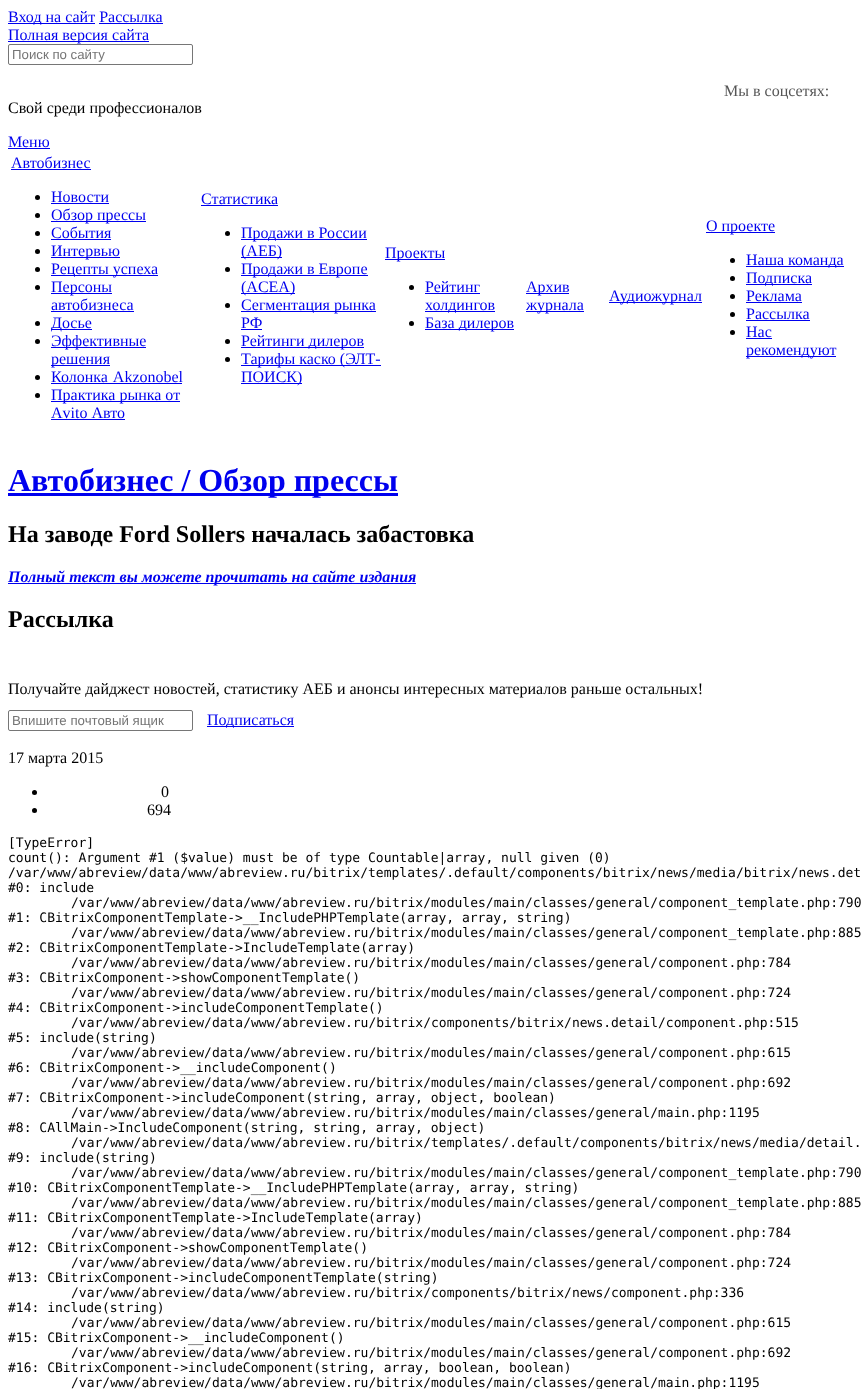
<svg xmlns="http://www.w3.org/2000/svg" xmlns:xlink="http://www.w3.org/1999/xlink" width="861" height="1389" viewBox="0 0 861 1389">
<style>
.cls-1{font:16px Liberation Serif;fill:#0000ee}
.cls-2{font:13.25px Liberation Sans;fill:#757575}
.cls-3{font:16px Liberation Serif;fill:#555555}
.cls-4{font:16px Liberation Serif;fill:#000000}
.cls-5{font:bold 32px Liberation Serif;fill:#0000ee}
.cls-6{font:bold 24px Liberation Serif;fill:#000000}
.cls-7{font:italic bold 16px Liberation Serif;fill:#0000ee}
.cls-8{font:13px DejaVu Sans Mono;fill:#000000}
</style>
<rect width="100%" height="100%" fill="#ffffff"/>
<rect fill="#0000ee" x="8" y="23" width="87" height="1"/>
<rect fill="#0000ee" x="99" y="23" width="64" height="1"/>
<rect fill="#0000ee" x="8" y="41" width="141" height="1"/>
<rect fill="none" stroke="#767676" x="8.5" y="44.5" width="184" height="20" rx="1.5"/>
<rect fill="#0000ee" x="8" y="148" width="42" height="1"/>
<rect fill="#0000ee" x="11" y="169" width="80" height="1"/>
<circle fill="#000000" cx="37.5" cy="197.5" r="2.5"/>
<rect fill="#0000ee" x="51" y="203" width="58" height="1"/>
<circle fill="#000000" cx="37.5" cy="215.5" r="2.5"/>
<rect fill="#0000ee" x="51" y="221" width="95" height="1"/>
<circle fill="#000000" cx="37.5" cy="233.5" r="2.5"/>
<rect fill="#0000ee" x="51" y="239" width="60" height="1"/>
<circle fill="#000000" cx="37.5" cy="251.5" r="2.5"/>
<rect fill="#0000ee" x="51" y="257" width="69" height="1"/>
<circle fill="#000000" cx="37.5" cy="269.5" r="2.5"/>
<rect fill="#0000ee" x="51" y="275" width="107" height="1"/>
<circle fill="#000000" cx="37.5" cy="287.5" r="2.5"/>
<rect fill="#0000ee" x="51" y="293" width="61" height="1"/>
<rect fill="#0000ee" x="51" y="311" width="83" height="1"/>
<circle fill="#000000" cx="37.5" cy="323.5" r="2.5"/>
<rect fill="#0000ee" x="51" y="329" width="41" height="1"/>
<circle fill="#000000" cx="37.5" cy="341.5" r="2.5"/>
<rect fill="#0000ee" x="51" y="347" width="95" height="1"/>
<rect fill="#0000ee" x="51" y="365" width="59" height="1"/>
<circle fill="#000000" cx="37.5" cy="377.5" r="2.5"/>
<rect fill="#0000ee" x="51" y="383" width="131" height="1"/>
<circle fill="#000000" cx="37.5" cy="395.5" r="2.5"/>
<rect fill="#0000ee" x="51" y="401" width="129" height="1"/>
<rect fill="#0000ee" x="51" y="419" width="74" height="1"/>
<rect fill="#0000ee" x="201" y="205" width="77" height="1"/>
<circle fill="#000000" cx="227.5" cy="233.5" r="2.5"/>
<rect fill="#0000ee" x="241" y="239" width="126" height="1"/>
<rect fill="#0000ee" x="241" y="257" width="41" height="1"/>
<circle fill="#000000" cx="227.5" cy="269.5" r="2.5"/>
<rect fill="#0000ee" x="241" y="275" width="127" height="1"/>
<rect fill="#0000ee" x="241" y="293" width="54" height="1"/>
<circle fill="#000000" cx="227.5" cy="305.5" r="2.5"/>
<rect fill="#0000ee" x="241" y="311" width="135" height="1"/>
<rect fill="#0000ee" x="241" y="329" width="21" height="1"/>
<circle fill="#000000" cx="227.5" cy="341.5" r="2.5"/>
<rect fill="#0000ee" x="241" y="347" width="123" height="1"/>
<circle fill="#000000" cx="227.5" cy="359.5" r="2.5"/>
<rect fill="#0000ee" x="241" y="365" width="140" height="1"/>
<rect fill="#0000ee" x="241" y="383" width="61" height="1"/>
<rect fill="#0000ee" x="385" y="259" width="60" height="1"/>
<circle fill="#000000" cx="411.5" cy="287.5" r="2.5"/>
<rect fill="#0000ee" x="425" y="293" width="55" height="1"/>
<rect fill="#0000ee" x="425" y="311" width="70" height="1"/>
<circle fill="#000000" cx="411.5" cy="323.5" r="2.5"/>
<rect fill="#0000ee" x="425" y="329" width="89" height="1"/>
<rect fill="#0000ee" x="526" y="293" width="43" height="1"/>
<rect fill="#0000ee" x="526" y="311" width="58" height="1"/>
<rect fill="#0000ee" x="609" y="302" width="93" height="1"/>
<rect fill="#0000ee" x="706" y="232" width="69" height="1"/>
<circle fill="#000000" cx="732.5" cy="260.5" r="2.5"/>
<rect fill="#0000ee" x="746" y="266" width="98" height="1"/>
<circle fill="#000000" cx="732.5" cy="278.5" r="2.5"/>
<rect fill="#0000ee" x="746" y="284" width="66" height="1"/>
<circle fill="#000000" cx="732.5" cy="296.5" r="2.5"/>
<rect fill="#0000ee" x="746" y="302" width="56" height="1"/>
<circle fill="#000000" cx="732.5" cy="314.5" r="2.5"/>
<rect fill="#0000ee" x="746" y="320" width="64" height="1"/>
<circle fill="#000000" cx="732.5" cy="332.5" r="2.5"/>
<rect fill="#0000ee" x="746" y="338" width="26" height="1"/>
<rect fill="#0000ee" x="746" y="356" width="90" height="1"/>
<rect fill="#0000ee" x="8" y="493" width="390" height="3"/>
<rect fill="#0000ee" x="8" y="583" width="408" height="1"/>
<rect fill="none" stroke="#767676" x="8.5" y="710.5" width="184" height="20" rx="1.5"/>
<rect fill="#0000ee" x="207" y="726" width="87" height="1"/>
<circle fill="#000000" cx="34.5" cy="792.5" r="2.5"/>
<circle fill="#000000" cx="34.5" cy="810.5" r="2.5"/>
<text class="cls-1"><tspan x="8" y="22">Вход на сайт Рассылка</tspan><tspan x="8" y="40">Полная версия сайта</tspan></text>
<text class="cls-2" x="12" y="59">Поиск по сайту</text>
<text class="cls-3" x="724" y="96">Мы в соцсетях:</text>
<text class="cls-4" x="8" y="113">Свой среди профессионалов</text>
<text class="cls-1" x="8" y="147">Меню</text>
<text class="cls-1" x="11" y="168">Автобизнес</text>
<text class="cls-1"><tspan x="51" y="202">Новости</tspan><tspan x="51" y="220">Обзор прессы</tspan><tspan x="51" y="238">События</tspan><tspan x="51" y="256">Интервью</tspan><tspan x="51" y="274">Рецепты успеха</tspan><tspan x="51" y="292">Персоны</tspan><tspan x="51" y="310">автобизнеса</tspan><tspan x="51" y="328">Досье</tspan><tspan x="51" y="346">Эффективные</tspan><tspan x="51" y="364">решения</tspan><tspan x="51" y="382" word-spacing="1">Колонка Akzonobel</tspan><tspan x="51" y="400">Практика рынка от</tspan><tspan x="51" y="418">Аvito Авто</tspan></text>
<text class="cls-1" x="201" y="204">Статистика</text>
<text class="cls-1"><tspan x="241" y="238">Продажи в России</tspan><tspan x="241" y="256">(АЕБ)</tspan><tspan x="241" y="274">Продажи в Европе</tspan><tspan x="241" y="292">(ACEA)</tspan><tspan x="241" y="310">Сегментация рынка</tspan><tspan x="241" y="328">РФ</tspan><tspan x="241" y="346">Рейтинги дилеров</tspan><tspan x="241" y="364">Тарифы каско (ЭЛТ-</tspan><tspan x="241" y="382">ПОИСК)</tspan></text>
<text class="cls-1" x="385" y="258">Проекты</text>
<text class="cls-1"><tspan x="425" y="292">Рейтинг</tspan><tspan x="425" y="310">холдингов</tspan><tspan x="425" y="328">База дилеров</tspan></text>
<text class="cls-1"><tspan x="526" y="292">Архив</tspan><tspan x="526" y="310">журнала</tspan></text>
<text class="cls-1" x="609" y="301">Аудиожурнал</text>
<text class="cls-1" x="706" y="231">О проекте</text>
<text class="cls-1"><tspan x="746" y="265">Наша команда</tspan><tspan x="746" y="283">Подписка</tspan><tspan x="746" y="301">Реклама</tspan><tspan x="746" y="319">Рассылка</tspan><tspan x="746" y="337">Нас</tspan><tspan x="746" y="355">рекомендуют</tspan></text>
<text class="cls-5" x="8" y="491">Автобизнес / Обзор прессы</text>
<text class="cls-6" x="8" y="542">На заводе Ford Sollers началась забастовка</text>
<text class="cls-7" x="8" y="582">Полный текст вы можете прочитать на сайте издания</text>
<text class="cls-6" x="8" y="627">Рассылка</text>
<text class="cls-4" x="8" y="694">Получайте дайджест новостей, статистику АЕБ и анонсы интересных материалов раньше остальных!</text>
<text class="cls-2" x="12" y="725">Впишите почтовый ящик</text>
<text class="cls-1" x="207" y="725">Подписаться</text>
<text class="cls-4" x="8" y="763">17 марта 2015</text>
<text class="cls-4" x="161" y="797">0</text>
<text class="cls-4" x="147" y="815">694</text>
<text class="cls-8"><tspan x="8" y="847">[TypeError]</tspan><tspan x="8" y="862">count(): Argument #1 ($value) must be of type Countable|array, null given (0)</tspan><tspan x="8" y="877">/var/www/abreview/data/www/abreview.ru/bitrix/templates/.default/components/bitrix/news/media/bitrix/news.det</tspan><tspan x="8" y="892">#0: include</tspan></text>
<text class="cls-8" x="71" y="907">/var/www/abreview/data/www/abreview.ru/bitrix/modules/main/classes/general/component_template.php:790</text>
<text class="cls-8" x="8" y="922">#1: CBitrixComponentTemplate-&gt;__IncludePHPTemplate(array, array, string)</text>
<text class="cls-8" x="71" y="937">/var/www/abreview/data/www/abreview.ru/bitrix/modules/main/classes/general/component_template.php:885</text>
<text class="cls-8" x="8" y="952">#2: CBitrixComponentTemplate-&gt;IncludeTemplate(array)</text>
<text class="cls-8" x="71" y="967">/var/www/abreview/data/www/abreview.ru/bitrix/modules/main/classes/general/component.php:784</text>
<text class="cls-8" x="8" y="982">#3: CBitrixComponent-&gt;showComponentTemplate()</text>
<text class="cls-8" x="71" y="997">/var/www/abreview/data/www/abreview.ru/bitrix/modules/main/classes/general/component.php:724</text>
<text class="cls-8" x="8" y="1012">#4: CBitrixComponent-&gt;includeComponentTemplate()</text>
<text class="cls-8" x="71" y="1027">/var/www/abreview/data/www/abreview.ru/bitrix/components/bitrix/news.detail/component.php:515</text>
<text class="cls-8" x="8" y="1042">#5: include(string)</text>
<text class="cls-8" x="71" y="1057">/var/www/abreview/data/www/abreview.ru/bitrix/modules/main/classes/general/component.php:615</text>
<text class="cls-8" x="8" y="1072">#6: CBitrixComponent-&gt;__includeComponent()</text>
<text class="cls-8" x="71" y="1087">/var/www/abreview/data/www/abreview.ru/bitrix/modules/main/classes/general/component.php:692</text>
<text class="cls-8" x="8" y="1102">#7: CBitrixComponent-&gt;includeComponent(string, array, object, boolean)</text>
<text class="cls-8" x="71" y="1117">/var/www/abreview/data/www/abreview.ru/bitrix/modules/main/classes/general/main.php:1195</text>
<text class="cls-8" x="8" y="1132">#8: CAllMain-&gt;IncludeComponent(string, string, array, object)</text>
<text class="cls-8" x="71" y="1147">/var/www/abreview/data/www/abreview.ru/bitrix/templates/.default/components/bitrix/news/media/detail.</text>
<text class="cls-8" x="8" y="1162">#9: include(string)</text>
<text class="cls-8" x="71" y="1177">/var/www/abreview/data/www/abreview.ru/bitrix/modules/main/classes/general/component_template.php:790</text>
<text class="cls-8" x="8" y="1192">#10: CBitrixComponentTemplate-&gt;__IncludePHPTemplate(array, array, string)</text>
<text class="cls-8" x="71" y="1207">/var/www/abreview/data/www/abreview.ru/bitrix/modules/main/classes/general/component_template.php:885</text>
<text class="cls-8" x="8" y="1222">#11: CBitrixComponentTemplate-&gt;IncludeTemplate(array)</text>
<text class="cls-8" x="71" y="1237">/var/www/abreview/data/www/abreview.ru/bitrix/modules/main/classes/general/component.php:784</text>
<text class="cls-8" x="8" y="1252">#12: CBitrixComponent-&gt;showComponentTemplate()</text>
<text class="cls-8" x="71" y="1267">/var/www/abreview/data/www/abreview.ru/bitrix/modules/main/classes/general/component.php:724</text>
<text class="cls-8" x="8" y="1282">#13: CBitrixComponent-&gt;includeComponentTemplate(string)</text>
<text class="cls-8" x="71" y="1297">/var/www/abreview/data/www/abreview.ru/bitrix/components/bitrix/news/component.php:336</text>
<text class="cls-8" x="8" y="1312">#14: include(string)</text>
<text class="cls-8" x="71" y="1327">/var/www/abreview/data/www/abreview.ru/bitrix/modules/main/classes/general/component.php:615</text>
<text class="cls-8" x="8" y="1342">#15: CBitrixComponent-&gt;__includeComponent()</text>
<text class="cls-8" x="71" y="1357">/var/www/abreview/data/www/abreview.ru/bitrix/modules/main/classes/general/component.php:692</text>
<text class="cls-8" x="8" y="1372">#16: CBitrixComponent-&gt;includeComponent(string, array, boolean, boolean)</text>
<text class="cls-8" x="71" y="1387">/var/www/abreview/data/www/abreview.ru/bitrix/modules/main/classes/general/main.php:1195</text>
</svg>
